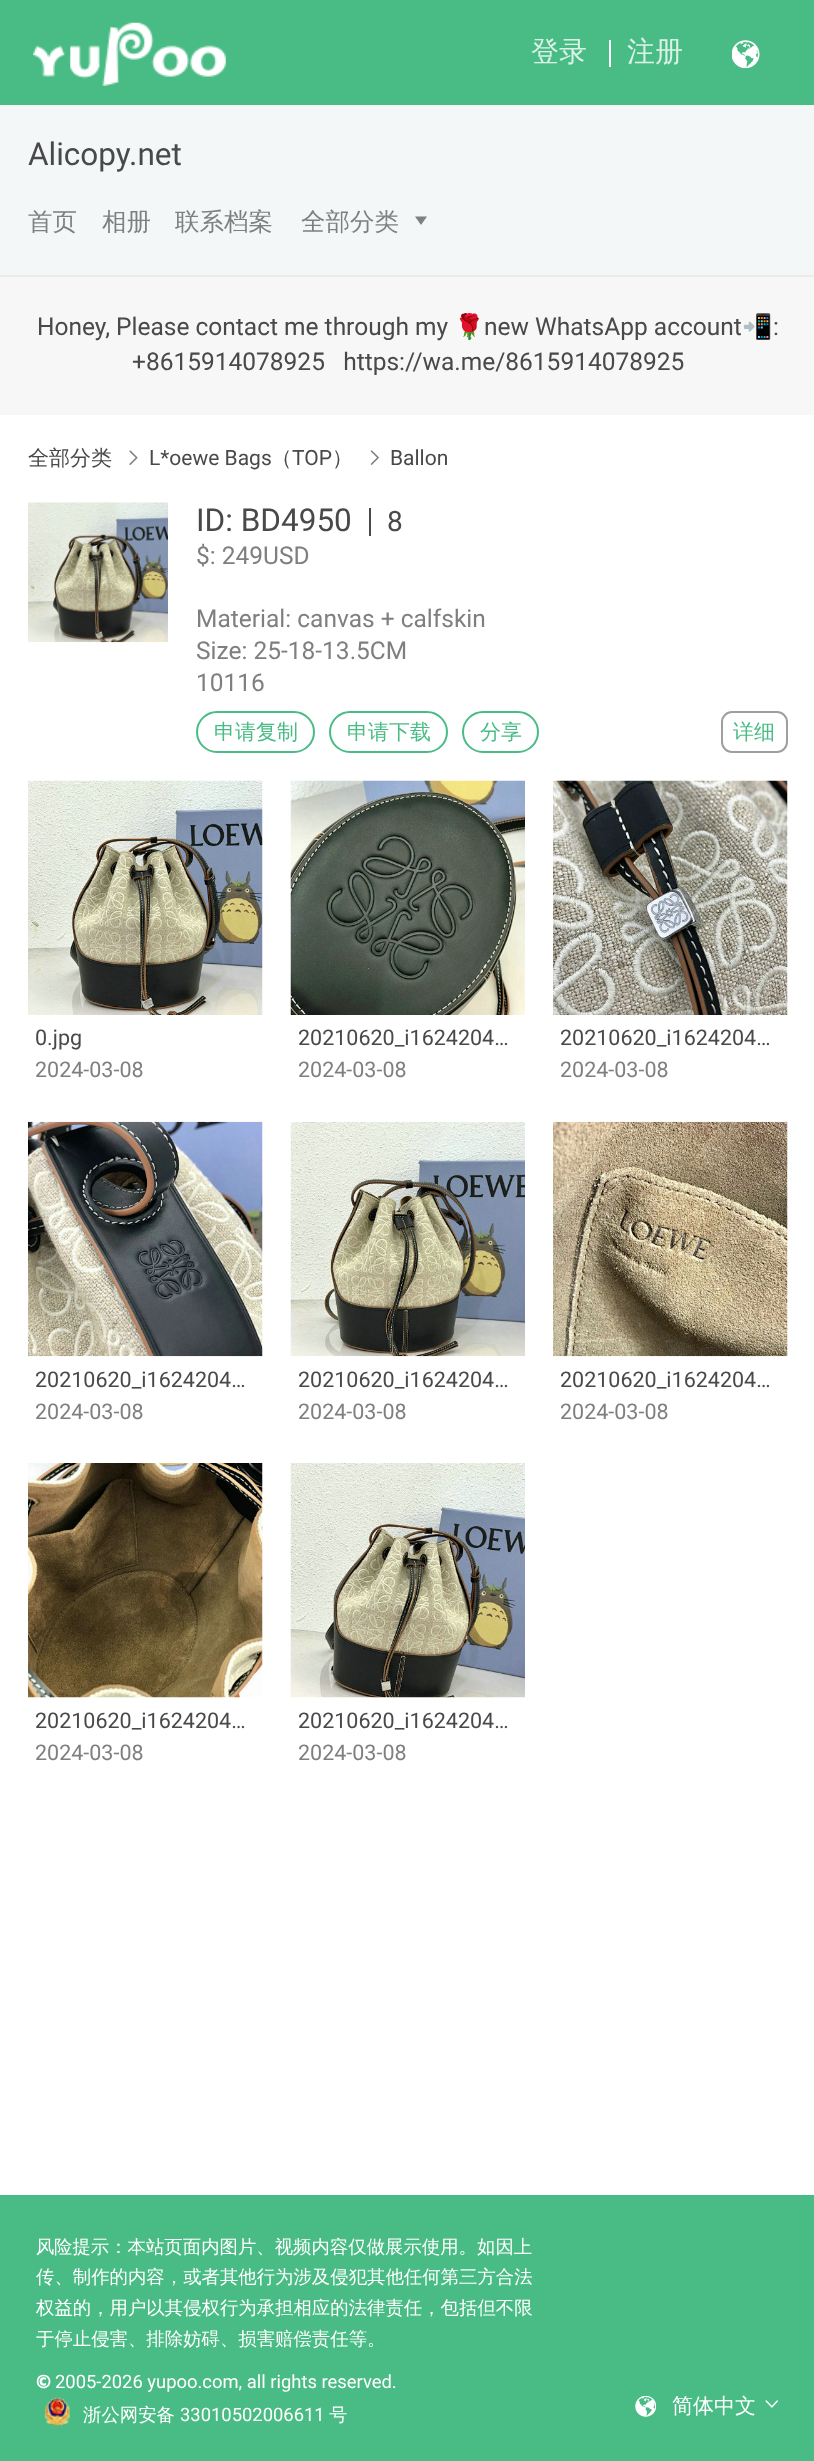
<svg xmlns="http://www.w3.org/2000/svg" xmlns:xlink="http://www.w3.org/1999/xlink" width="814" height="2461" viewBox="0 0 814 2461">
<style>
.cls-1{font:500 28px WenQuanYi Zen Hei;fill:#dbf2e7}
.cls-2{font:31.5px Roboto;fill:#494949}
.cls-3{font:500 24.5px WenQuanYi Zen Hei;fill:#7f7f7f}
.cls-4{font:24.5px Roboto;fill:#494949}
.cls-5{font:24.5px Noto Color Emoji;fill:#494949}
.cls-6{font:500 21px WenQuanYi Zen Hei;fill:#494949}
.cls-7{font:21px Roboto;fill:#494949}
.cls-8{font:28px Roboto;fill:#494949}
.cls-9{font:24.5px Roboto;fill:#7f7f7f}
.cls-10{font:500 21px WenQuanYi Zen Hei;fill:#49bc85}
.cls-11{font:21.5px Roboto;fill:#494949}
.cls-12{font:21.5px Roboto;fill:#7f7f7f}
.cls-13{font:18.4px Noto Sans;fill:#ffffff}
.cls-14{font:500 18.4px WenQuanYi Zen Hei;fill:#ffffff}
.cls-15{font:900 18.4px Noto Sans;fill:#ffffff}
.cls-16{font:18.4px Roboto;fill:#ffffff}
.cls-17{font:500 21px WenQuanYi Zen Hei;fill:#ffffff}
</style>
<rect width="100%" height="100%" fill="#ffffff"/>
<rect fill="#49bc85" x="0" y="0" width="814" height="105"/>
<image xlink:href="image0.png" x="33" y="22" width="193" height="64"/>
<rect fill="#ffffff" x="609" y="40" width="2" height="27"/>
<image xlink:href="image1.png" x="732" y="40" width="28" height="28"/>
<rect fill="#f3f7f7" x="0" y="105" width="814" height="170"/>
<path fill="#7f7f7f" d="M421 225L415 216.5H427Z"/>
<rect fill="#f7f7f7" x="0" y="277" width="814" height="138"/>
<rect fill="#ececec" x="0" y="275" width="814" height="2"/>
<image xlink:href="image2.png" x="129" y="450" width="9" height="15"/>
<image xlink:href="image3.png" x="370" y="450" width="9" height="15"/>
<image xlink:href="image4.png" x="28" y="502" width="140" height="141"/>
<rect fill="#494949" x="369" y="508" width="2" height="28"/>
<rect fill="none" stroke="#49bc85" stroke-width="2" x="197" y="712" width="117" height="40" rx="20"/>
<rect fill="none" stroke="#49bc85" stroke-width="2" x="330" y="712" width="117" height="40" rx="20"/>
<rect fill="none" stroke="#49bc85" stroke-width="2" x="463" y="712" width="75" height="40" rx="20"/>
<rect fill="none" stroke="#9f9f9f" stroke-width="2" x="722" y="712" width="65" height="40" rx="10"/>
<image xlink:href="image5.png" x="28" y="780" width="235" height="235"/>
<image xlink:href="image6.png" x="290" y="780" width="235" height="235"/>
<image xlink:href="image7.png" x="553" y="780" width="235" height="235"/>
<image xlink:href="image8.png" x="28" y="1121" width="235" height="236"/>
<image xlink:href="image9.png" x="290" y="1121" width="235" height="236"/>
<image xlink:href="image10.png" x="553" y="1121" width="235" height="236"/>
<image xlink:href="image11.png" x="28" y="1463" width="235" height="235"/>
<image xlink:href="image12.png" x="290" y="1463" width="235" height="235"/>
<rect fill="#49bc85" x="0" y="2195" width="814" height="266"/>
<image xlink:href="image13.png" x="44" y="2397" width="26" height="29"/>
<image xlink:href="image14.png" x="635" y="2396" width="21" height="21"/>
<image xlink:href="image15.png" x="765" y="2400" width="13" height="8"/>
<text class="cls-1" x="531" y="61">登录</text>
<text class="cls-1" x="627" y="61">注册</text>
<text class="cls-2" x="28" y="165">Alicopy.net</text>
<text class="cls-3" x="28" y="230">首页</text>
<text class="cls-3" x="102" y="230">相册</text>
<text class="cls-3" x="175" y="230">联系档案</text>
<text class="cls-3" x="301" y="230">全部分类</text>
<text class="cls-4" x="37" y="335">Honey, Please contact me through my</text>
<text class="cls-5" x="454" y="335">🌹</text>
<text class="cls-4" x="484" y="335">new WhatsApp account</text>
<text class="cls-5" x="742" y="335">📲</text>
<text class="cls-4" x="773" y="335">:</text>
<text class="cls-4" xml:space="preserve" x="132" y="370">+8615914078925   https://wa.me/8615914078925</text>
<text class="cls-6" x="28" y="465">全部分类</text>
<text class="cls-7" x="149" y="465">L*oewe Bags</text>
<text class="cls-6" x="271" y="465">（</text>
<text class="cls-7" x="292" y="465">TOP</text>
<text class="cls-6" x="332" y="465">）</text>
<text class="cls-7" x="390" y="465">Ballon</text>
<text class="cls-2" x="196" y="531">ID: BD4950</text>
<text class="cls-8" x="387" y="531">8</text>
<text class="cls-9" x="196" y="564">$: 249USD</text>
<text class="cls-9"><tspan x="196" y="627">Material: canvas + calfskin</tspan><tspan x="196" y="659">Size: 25-18-13.5CM</tspan><tspan x="196" y="691">10116</tspan></text>
<text class="cls-10" x="214" y="739">申请复制</text>
<text class="cls-10" x="347" y="739">申请下载</text>
<text class="cls-10" x="480" y="739">分享</text>
<text class="cls-10" x="733" y="739">详细</text>
<text class="cls-11" x="35" y="1045">0.jpg</text>
<text class="cls-12" x="35" y="1077">2024-03-08</text>
<text class="cls-11" x="298" y="1045">20210620_i1624204…</text>
<text class="cls-12" x="298" y="1077">2024-03-08</text>
<text class="cls-11" x="560" y="1045">20210620_i1624204…</text>
<text class="cls-12" x="560" y="1077">2024-03-08</text>
<text class="cls-11" x="35" y="1387">20210620_i1624204…</text>
<text class="cls-12" x="35" y="1419">2024-03-08</text>
<text class="cls-11" x="298" y="1387">20210620_i1624204…</text>
<text class="cls-12" x="298" y="1419">2024-03-08</text>
<text class="cls-11" x="560" y="1387">20210620_i1624204…</text>
<text class="cls-12" x="560" y="1419">2024-03-08</text>
<text class="cls-11" x="35" y="1728">20210620_i1624204…</text>
<text class="cls-12" x="35" y="1760">2024-03-08</text>
<text class="cls-11" x="298" y="1728">20210620_i1624204…</text>
<text class="cls-12" x="298" y="1760">2024-03-08</text>
<text class="cls-13" x="36" y="2253">风</text>
<text class="cls-14" x="54" y="2253">险提示：本站页面内图片、视频内容仅做展示使用。如因上</text>
<text class="cls-14"><tspan x="36" y="2283">传、制作的内容，或者其他行为涉及侵犯其他任何第三方合法</tspan><tspan x="36" y="2314">权益的，用户以其侵权行为承担相应的法律责任，包括但不限</tspan><tspan x="36" y="2345">于停止侵害、排除妨碍、损害赔偿责任等。</tspan></text>
<text class="cls-15" x="36" y="2388">©</text>
<text class="cls-16" x="55" y="2388">2005-2026 yupoo.com, all rights reserved.</text>
<text class="cls-14" x="83" y="2421">浙公网安备</text>
<text class="cls-16" x="180" y="2421">33010502006611</text>
<text class="cls-14" x="329" y="2421">号</text>
<text class="cls-17" x="672" y="2413">简体中文</text>
</svg>
